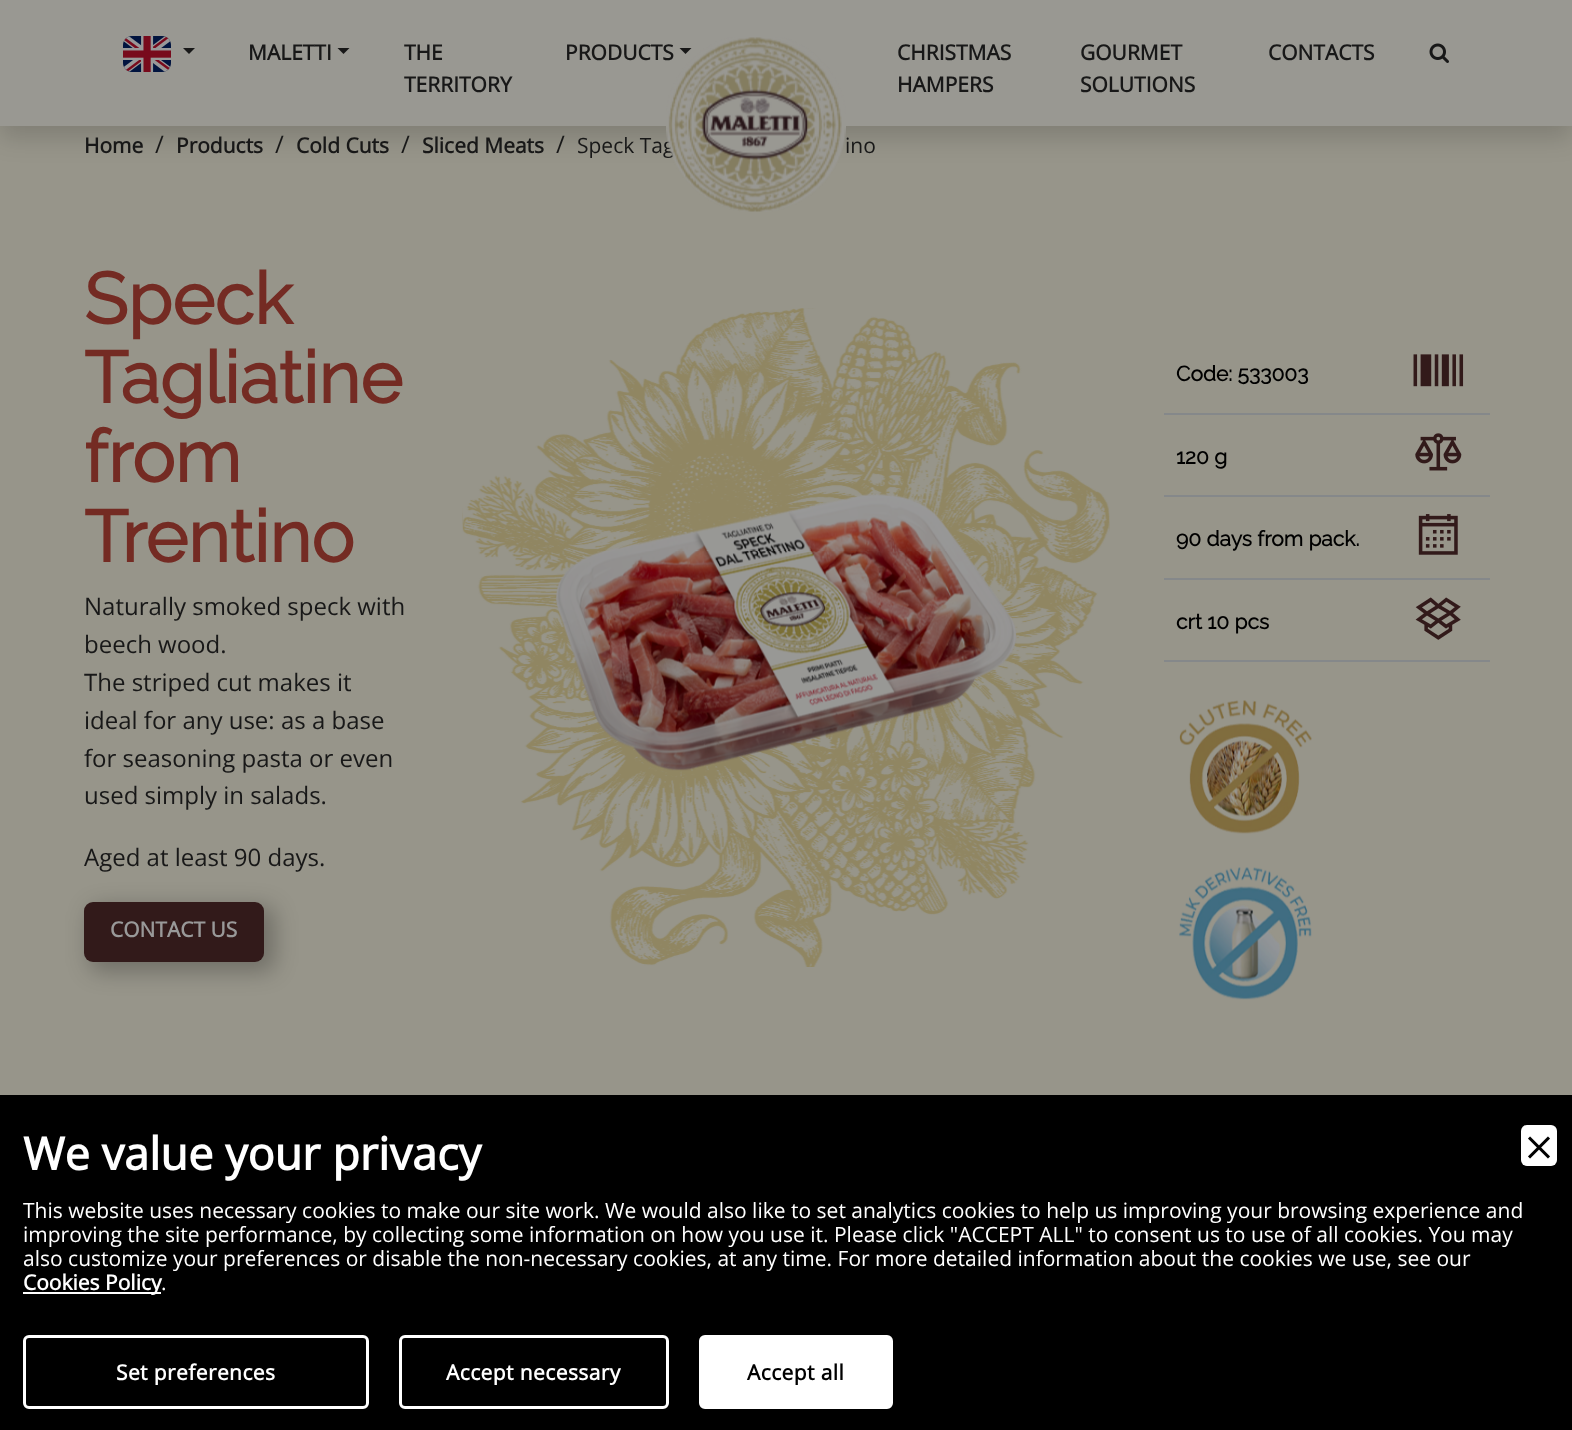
<svg xmlns="http://www.w3.org/2000/svg" xmlns:xlink="http://www.w3.org/1999/xlink" width="1572" height="1430" viewBox="0 0 1572 1430">
<style>
.cls-1{font:bold 21px Open Sans;fill:#181818}
.cls-2{font:24px Open Sans;fill:#181818}
.cls-3{font:21px Open Sans;fill:#181818}
.cls-4{font:bold 72px Raleway;fill:#742b23}
.cls-5{font:bold 21px Open Sans;fill:#999999}
.cls-6{font:bold 21px Raleway;fill:#000000}
.cls-7{font:bold 45px Open Sans;fill:#ffffff}
.cls-8{font:21px Open Sans;fill:#ffffff}
.cls-9{font:bold 21px Open Sans;fill:#ffffff}
.cls-10{font:bold 21px Open Sans;letter-spacing:0.4px;fill:#ffffff}
.cls-11{font:bold 21px Open Sans;letter-spacing:0.4px;fill:#000000}
</style>
<rect width="100%" height="100%" fill="#97958a"/>
<rect fill="#000000" fill-opacity="0.15" filter="blur(12px)" x="0" y="12" width="1572" height="126"/>
<rect fill="#999892" x="0" y="0" width="1572" height="126"/>
<image xlink:href="image0.png" x="123" y="36" width="48" height="36"/>
<path fill="#181818" d="M183 48H195L189 54Z"/>
<path fill="#181818" d="M337.5 48H349.5L343.5 54Z"/>
<image xlink:href="image2.png" x="1429" y="43" width="20" height="20"/>
<rect fill="#000000" fill-opacity="0.25" filter="blur(11px)" x="89" y="906" width="186" height="66" rx="12"/>
<rect fill="#321a1a" x="84" y="902" width="180" height="60" rx="9"/>
<image xlink:href="image3.png" x="462" y="308" width="648" height="659"/>
<image xlink:href="image4.png" x="556" y="493" width="461" height="278"/>
<rect fill="#85888a" x="1164" y="413" width="326" height="2"/>
<image xlink:href="image5.png" x="1413" y="354" width="51" height="33"/>
<rect fill="#85888a" x="1164" y="495" width="326" height="2"/>
<image xlink:href="image6.png" x="1415" y="433" width="47" height="38"/>
<rect fill="#85888a" x="1164" y="578" width="326" height="2"/>
<image xlink:href="image7.png" x="1418" y="514" width="40" height="41"/>
<rect fill="#85888a" x="1164" y="660" width="326" height="2"/>
<image xlink:href="image8.png" x="1415" y="597" width="46" height="43"/>
<image xlink:href="image9.png" x="1179" y="700" width="133" height="134"/>
<image xlink:href="image10.png" x="1179" y="867" width="133" height="133"/>
<rect fill="#000000" x="0" y="1095" width="1572" height="335"/>
<rect fill="#ffffff" x="1521" y="1125" width="36" height="41" rx="6"/>
<image xlink:href="image11.png" x="1528" y="1136" width="22" height="23"/>
<rect fill="#ffffff" x="23" y="1292" width="138" height="2"/>
<rect fill="none" stroke="#ffffff" stroke-width="3" x="24.5" y="1336.5" width="343" height="71" rx="4.5"/>
<rect fill="none" stroke="#ffffff" stroke-width="3" x="400.5" y="1336.5" width="267" height="71" rx="4.5"/>
<rect fill="#ffffff" stroke="#ffffff" stroke-width="3" x="700.5" y="1336.5" width="191" height="71" rx="4.5"/>
<text class="cls-1" x="248" y="60">MALETTI</text>
<text class="cls-1"><tspan x="404" y="60">THE</tspan><tspan x="404" y="92">TERRITORY</tspan></text>
<text class="cls-1"><tspan x="897" y="60">CHRISTMAS</tspan><tspan x="897" y="92">HAMPERS</tspan></text>
<text class="cls-1"><tspan x="1080" y="60">GOURMET</tspan><tspan x="1080" y="92">SOLUTIONS</tspan></text>
<text class="cls-1" x="1268" y="60">CONTACTS</text>
<text class="cls-1" x="84" y="153">Home</text>
<text class="cls-2" x="155" y="153">/</text>
<text class="cls-1" x="176" y="153">Products</text>
<text class="cls-2" x="275" y="153">/</text>
<text class="cls-1" x="296" y="153">Cold Cuts</text>
<text class="cls-2" x="401" y="153">/</text>
<text class="cls-1" x="422" y="153">Sliced Meats</text>
<text class="cls-2" x="556" y="153">/</text>
<text class="cls-3" x="577" y="153">Speck Tag</text>
<image xlink:href="image1.png" x="666" y="37" width="180" height="175"/>
<path fill="#181818" d="M679.5 48H691.5L685.5 54Z"/>
<text class="cls-1" x="565" y="60">PRODUCTS</text>
<text class="cls-3" x="845" y="153">ino</text>
<text class="cls-4"><tspan x="84" y="324">Speck</tspan><tspan x="84" y="403">Tagliatine</tspan><tspan x="84" y="482">from</tspan><tspan x="84" y="562">Trentino</tspan></text>
<text class="cls-2"><tspan x="84" y="615">Naturally smoked speck with</tspan><tspan x="84" y="653">beech wood.</tspan><tspan x="84" y="691">The striped cut makes it</tspan><tspan x="84" y="729">ideal for any use: as a base</tspan><tspan x="84" y="767">for seasoning pasta or even</tspan><tspan x="84" y="804">used simply in salads.</tspan></text>
<text class="cls-2" x="84" y="866">Aged at least 90 days.</text>
<text class="cls-5" x="110" y="937">CONTACT US</text>
<text class="cls-6" x="1176" y="381">Code: 533003</text>
<text class="cls-6" x="1176" y="464">120 g</text>
<text class="cls-6" x="1176" y="546">90 days from pack.</text>
<text class="cls-6" x="1176" y="629">crt 10 pcs</text>
<text class="cls-7" x="23" y="1170">We value your privacy</text>
<text class="cls-8"><tspan x="23" y="1218">This website uses necessary cookies to make our site work. We would also like to set analytics cookies to help us improving your browsing experience and</tspan><tspan x="23" y="1242">improving the site performance, by collecting some information on how you use it. Please click "ACCEPT ALL" to consent us to use of all cookies. You may</tspan><tspan x="23" y="1266">also customize your preferences or disable the non-necessary cookies, at any time. For more detailed information about the cookies we use, see our</tspan></text>
<text class="cls-9" x="23" y="1290">Cookies Policy</text>
<text class="cls-8" x="161" y="1290">.</text>
<text class="cls-10" x="116" y="1380">Set preferences</text>
<text class="cls-10" x="446" y="1380">Accept necessary</text>
<text class="cls-11" x="747" y="1380">Accept all</text>
</svg>
